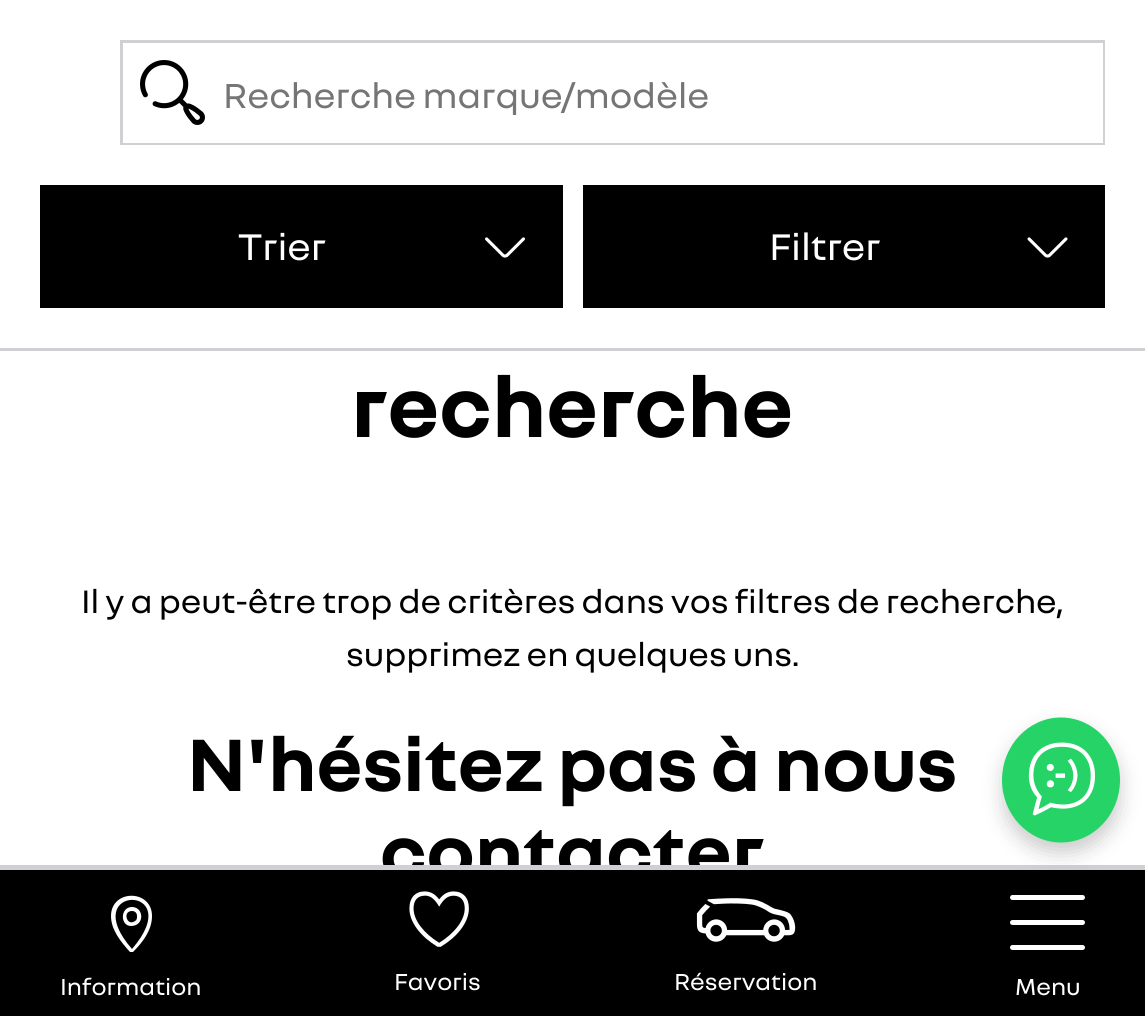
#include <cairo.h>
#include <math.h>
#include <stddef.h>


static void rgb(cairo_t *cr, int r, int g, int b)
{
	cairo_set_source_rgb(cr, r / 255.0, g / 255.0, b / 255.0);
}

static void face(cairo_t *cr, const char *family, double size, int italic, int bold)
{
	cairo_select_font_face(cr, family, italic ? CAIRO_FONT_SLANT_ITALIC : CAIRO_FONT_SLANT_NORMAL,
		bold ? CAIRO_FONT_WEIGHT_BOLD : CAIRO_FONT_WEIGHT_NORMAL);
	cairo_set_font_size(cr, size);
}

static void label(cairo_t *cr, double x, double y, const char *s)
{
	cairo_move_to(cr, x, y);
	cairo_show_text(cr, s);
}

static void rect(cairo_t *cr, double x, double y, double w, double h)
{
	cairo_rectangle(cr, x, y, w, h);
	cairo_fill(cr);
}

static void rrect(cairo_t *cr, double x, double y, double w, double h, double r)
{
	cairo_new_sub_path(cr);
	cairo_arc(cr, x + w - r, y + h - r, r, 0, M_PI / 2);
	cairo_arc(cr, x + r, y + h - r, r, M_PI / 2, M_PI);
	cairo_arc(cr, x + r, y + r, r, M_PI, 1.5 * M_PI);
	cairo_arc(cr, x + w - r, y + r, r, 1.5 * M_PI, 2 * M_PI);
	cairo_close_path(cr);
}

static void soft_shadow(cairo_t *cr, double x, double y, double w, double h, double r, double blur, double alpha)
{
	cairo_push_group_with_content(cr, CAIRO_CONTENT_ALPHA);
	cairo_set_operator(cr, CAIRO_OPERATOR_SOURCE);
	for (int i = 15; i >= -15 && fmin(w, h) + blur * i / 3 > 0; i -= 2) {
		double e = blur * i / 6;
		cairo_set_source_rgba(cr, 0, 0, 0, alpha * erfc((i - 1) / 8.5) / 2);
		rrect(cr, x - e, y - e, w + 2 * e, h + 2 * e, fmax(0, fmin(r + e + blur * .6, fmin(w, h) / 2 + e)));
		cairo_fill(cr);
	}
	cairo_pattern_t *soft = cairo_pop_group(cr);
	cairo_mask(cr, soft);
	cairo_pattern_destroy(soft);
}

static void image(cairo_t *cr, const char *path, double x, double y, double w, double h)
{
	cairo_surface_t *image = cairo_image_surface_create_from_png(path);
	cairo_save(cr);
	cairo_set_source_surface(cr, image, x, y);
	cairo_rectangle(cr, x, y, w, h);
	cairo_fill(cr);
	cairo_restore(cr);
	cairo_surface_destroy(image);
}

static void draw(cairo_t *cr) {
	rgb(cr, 255, 255, 255);
	cairo_paint(cr);
	rgb(cr, 206, 208, 211);
	rect(cr, 0, 348, 1145, 3);
	cairo_rectangle(cr, 121.5, 41.5, 982, 102);
	cairo_set_line_width(cr, 3);
	cairo_stroke(cr);
	rgb(cr, 255, 255, 255);
	rect(cr, 123, 43, 980, 100);
	image(cr, "image0.png", 140, 60, 65, 65);
	cairo_save(cr);
	cairo_rectangle(cr, 223, 70, 845, 45);
	cairo_clip(cr);
	face(cr, "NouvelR", 37.5, 0, 0);
	rgb(cr, 117, 117, 117);
	label(cr, 223, 108, "Recherche marque/modèle");
	cairo_restore(cr);
	rgb(cr, 0, 0, 0);
	rect(cr, 40, 185, 523, 123);
	face(cr, "NouvelR", 40, 0, 0);
	rgb(cr, 255, 255, 255);
	label(cr, 238, 260, "Trier");
	image(cr, "image1.png", 485, 237, 40, 21);
	rgb(cr, 0, 0, 0);
	rect(cr, 583, 185, 522, 123);
	rgb(cr, 255, 255, 255);
	label(cr, 769, 260, "Filtrer");
	image(cr, "image2.png", 1027, 237, 41, 21);
	face(cr, "NouvelR", 90, 0, 1);
	rgb(cr, 0, 0, 0);
	label(cr, 351, 437, "recherche");
	face(cr, "NouvelR", 35, 0, 0);
	label(cr, 81, 613, "Il y a peut-être trop de critères dans vos filtres de recherche,");
	label(cr, 346, 666, "supprimez en quelques uns.");
	face(cr, "NouvelR", 80, 0, 1);
	label(cr, 187, 791, "N'hésitez pas à nous");
	label(cr, 380, 879, "contacter");
	rect(cr, 0, 870, 1145, 146);
	rgb(cr, 206, 208, 211);
	rect(cr, 0, 865, 1145, 5);
	rgb(cr, 255, 255, 255);
	cairo_new_path(cr);
	cairo_move_to(cr, 152, 916);
	cairo_curve_to(cr, 152, 930, 143, 942, 133, 952);
	cairo_line_to(cr, 130, 952);
	cairo_curve_to(cr, 121, 942, 111, 930, 111, 916);
	cairo_curve_to(cr, 111, 889, 152, 889, 152, 916);
	cairo_close_path(cr);
	cairo_move_to(cr, 132, 949);
	cairo_curve_to(cr, 189, 883, 75, 884, 132, 949);
	cairo_close_path(cr);
	cairo_move_to(cr, 132, 907);
	cairo_curve_to(cr, 144, 907, 145, 926, 131, 926);
	cairo_curve_to(cr, 120, 926, 120, 907, 132, 907);
	cairo_close_path(cr);
	cairo_move_to(cr, 132, 911);
	cairo_curve_to(cr, 122, 911, 127, 927, 135, 921);
	cairo_curve_to(cr, 137, 920, 137, 918, 137, 916);
	cairo_curve_to(cr, 137, 913, 135, 911, 132, 911);
	cairo_close_path(cr);
	cairo_fill(cr);
	face(cr, "NouvelR", 25, 0, 0);
	label(cr, 60, 995, "Information");
	image(cr, "image3.png", 409, 891, 60, 56);
	label(cr, 394, 990, "Favoris");
	image(cr, "image4.png", 696, 898, 100, 44);
	label(cr, 674, 990, "Réservation");
	rrect(cr, 1010, 895, 75, 5, 2.5);
	cairo_fill(cr);
	rrect(cr, 1010, 920, 75, 5, 2.5);
	cairo_fill(cr);
	rrect(cr, 1010, 945, 75, 5, 2.5);
	cairo_fill(cr);
	label(cr, 1015, 995, "Menu");
	rgb(cr, 0, 0, 0);
	soft_shadow(cr, 1003, 728, 117, 125, 58.5, 10, 0.2);
	rgb(cr, 37, 211, 102);
	cairo_new_path(cr);
	cairo_move_to(cr, 1061, 717.5);
	cairo_curve_to(cr, 1093.5, 717.5, 1120, 745.5, 1120, 780);
	cairo_curve_to(cr, 1120, 814.5, 1093.5, 842.5, 1061, 842.5);
	cairo_curve_to(cr, 1028.5, 842.5, 1002, 814.5, 1002, 780);
	cairo_curve_to(cr, 1002, 745.5, 1028.5, 717.5, 1061, 717.5);
	cairo_close_path(cr);
	cairo_fill(cr);
	image(cr, "image5.png", 1028, 742, 67, 74);
}

int main(void) {
	cairo_surface_t *surface = cairo_image_surface_create(CAIRO_FORMAT_RGB24, 1145, 1016);
	cairo_t *cr = cairo_create(surface);
	cairo_font_options_t *options = cairo_font_options_create();
	cairo_font_options_set_hint_metrics(options, CAIRO_HINT_METRICS_OFF);
	cairo_font_options_set_hint_style(options, CAIRO_HINT_STYLE_NONE);
	cairo_set_font_options(cr, options);
	cairo_set_miter_limit(cr, 4);
	draw(cr);
	cairo_surface_write_to_png(surface, "render.png");
	cairo_font_options_destroy(options);
	cairo_destroy(cr);
	cairo_surface_destroy(surface);
	return 0;
}
